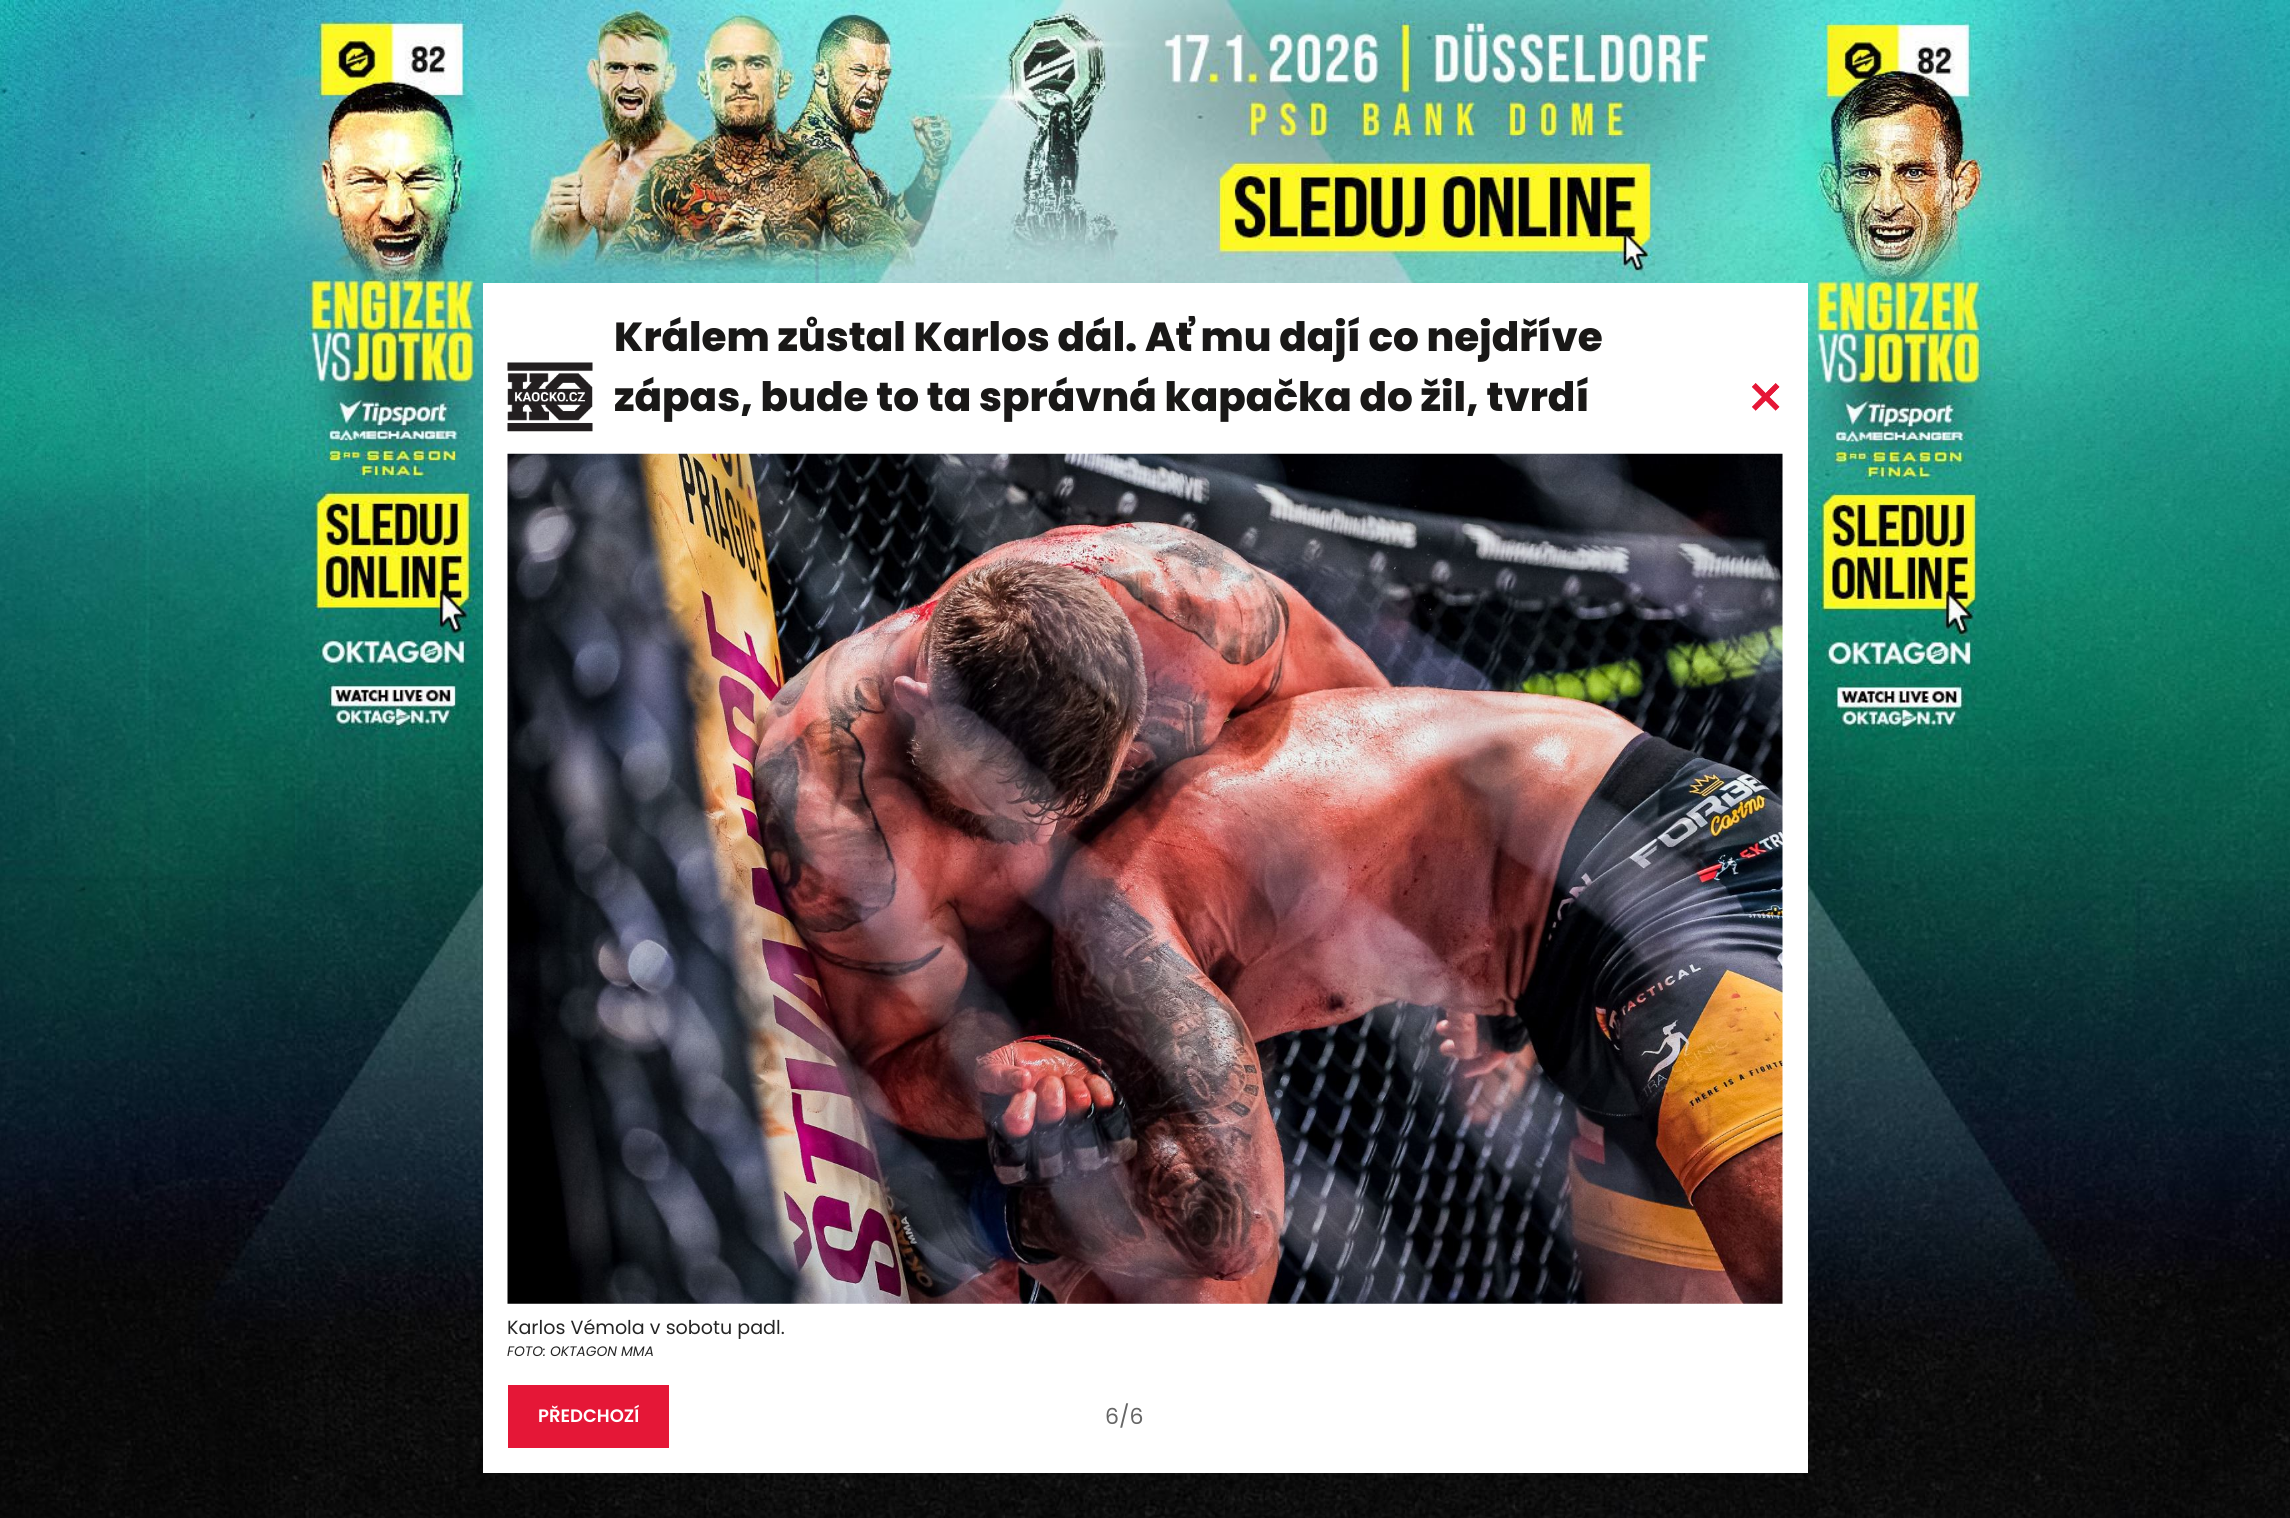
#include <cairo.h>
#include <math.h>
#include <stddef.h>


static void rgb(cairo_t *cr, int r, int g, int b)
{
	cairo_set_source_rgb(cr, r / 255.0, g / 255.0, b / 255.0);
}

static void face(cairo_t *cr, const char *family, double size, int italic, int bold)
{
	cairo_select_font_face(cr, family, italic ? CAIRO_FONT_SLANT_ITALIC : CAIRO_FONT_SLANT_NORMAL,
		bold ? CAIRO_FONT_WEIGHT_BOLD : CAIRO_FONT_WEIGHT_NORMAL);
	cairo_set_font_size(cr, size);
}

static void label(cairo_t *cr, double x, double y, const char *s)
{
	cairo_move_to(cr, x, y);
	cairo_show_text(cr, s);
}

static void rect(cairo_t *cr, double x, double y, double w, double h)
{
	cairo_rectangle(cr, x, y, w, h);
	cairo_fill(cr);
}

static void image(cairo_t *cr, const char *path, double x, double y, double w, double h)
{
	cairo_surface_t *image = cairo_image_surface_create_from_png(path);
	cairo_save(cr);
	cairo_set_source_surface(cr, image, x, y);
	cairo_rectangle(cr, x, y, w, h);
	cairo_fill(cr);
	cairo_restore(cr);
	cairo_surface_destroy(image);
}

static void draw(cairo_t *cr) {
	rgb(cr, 255, 255, 255);
	cairo_paint(cr);
	image(cr, "image0.png", 0, 0, 2290, 1518);
	rgb(cr, 255, 255, 255);
	rect(cr, 483, 283, 1325, 1190);
	image(cr, "image1.png", 507, 362, 86, 70);
	face(cr, "Poppins ExtraBold", 40.5, 0, 0);
	rgb(cr, 25, 24, 23);
	label(cr, 614, 351, "Králem zůstal Karlos dál. Ať mu dají co nejdříve");
	label(cr, 614, 411, "zápas, bude to ta správná kapačka do žil, tvrdí");
	image(cr, "image2.png", 1752, 383, 28, 28);
	image(cr, "image3.png", 507, 453, 1276, 851);
	face(cr, "Poppins", 19.1, 0, 0);
	rgb(cr, 37, 37, 37);
	label(cr, 507, 1334, "Karlos Vémola v sobotu padl.");
	face(cr, "Poppins", 13.75, 1, 0);
	label(cr, 507, 1356, "FOTO: OKTAGON MMA");
	rgb(cr, 229, 23, 55);
	rect(cr, 508, 1385, 161, 63);
	face(cr, "Poppins SemiBold", 18, 0, 0);
	rgb(cr, 255, 255, 255);
	label(cr, 538, 1422, "PŘEDCHOZÍ");
	face(cr, "Poppins", 22, 0, 0);
	rgb(cr, 102, 102, 102);
	label(cr, 1105, 1424, "6/6");
}

int main(void) {
	cairo_surface_t *surface = cairo_image_surface_create(CAIRO_FORMAT_RGB24, 2290, 1518);
	cairo_t *cr = cairo_create(surface);
	cairo_font_options_t *options = cairo_font_options_create();
	cairo_font_options_set_hint_metrics(options, CAIRO_HINT_METRICS_OFF);
	cairo_font_options_set_hint_style(options, CAIRO_HINT_STYLE_NONE);
	cairo_set_font_options(cr, options);
	cairo_set_miter_limit(cr, 4);
	draw(cr);
	cairo_surface_write_to_png(surface, "render.png");
	cairo_font_options_destroy(options);
	cairo_destroy(cr);
	cairo_surface_destroy(surface);
	return 0;
}
